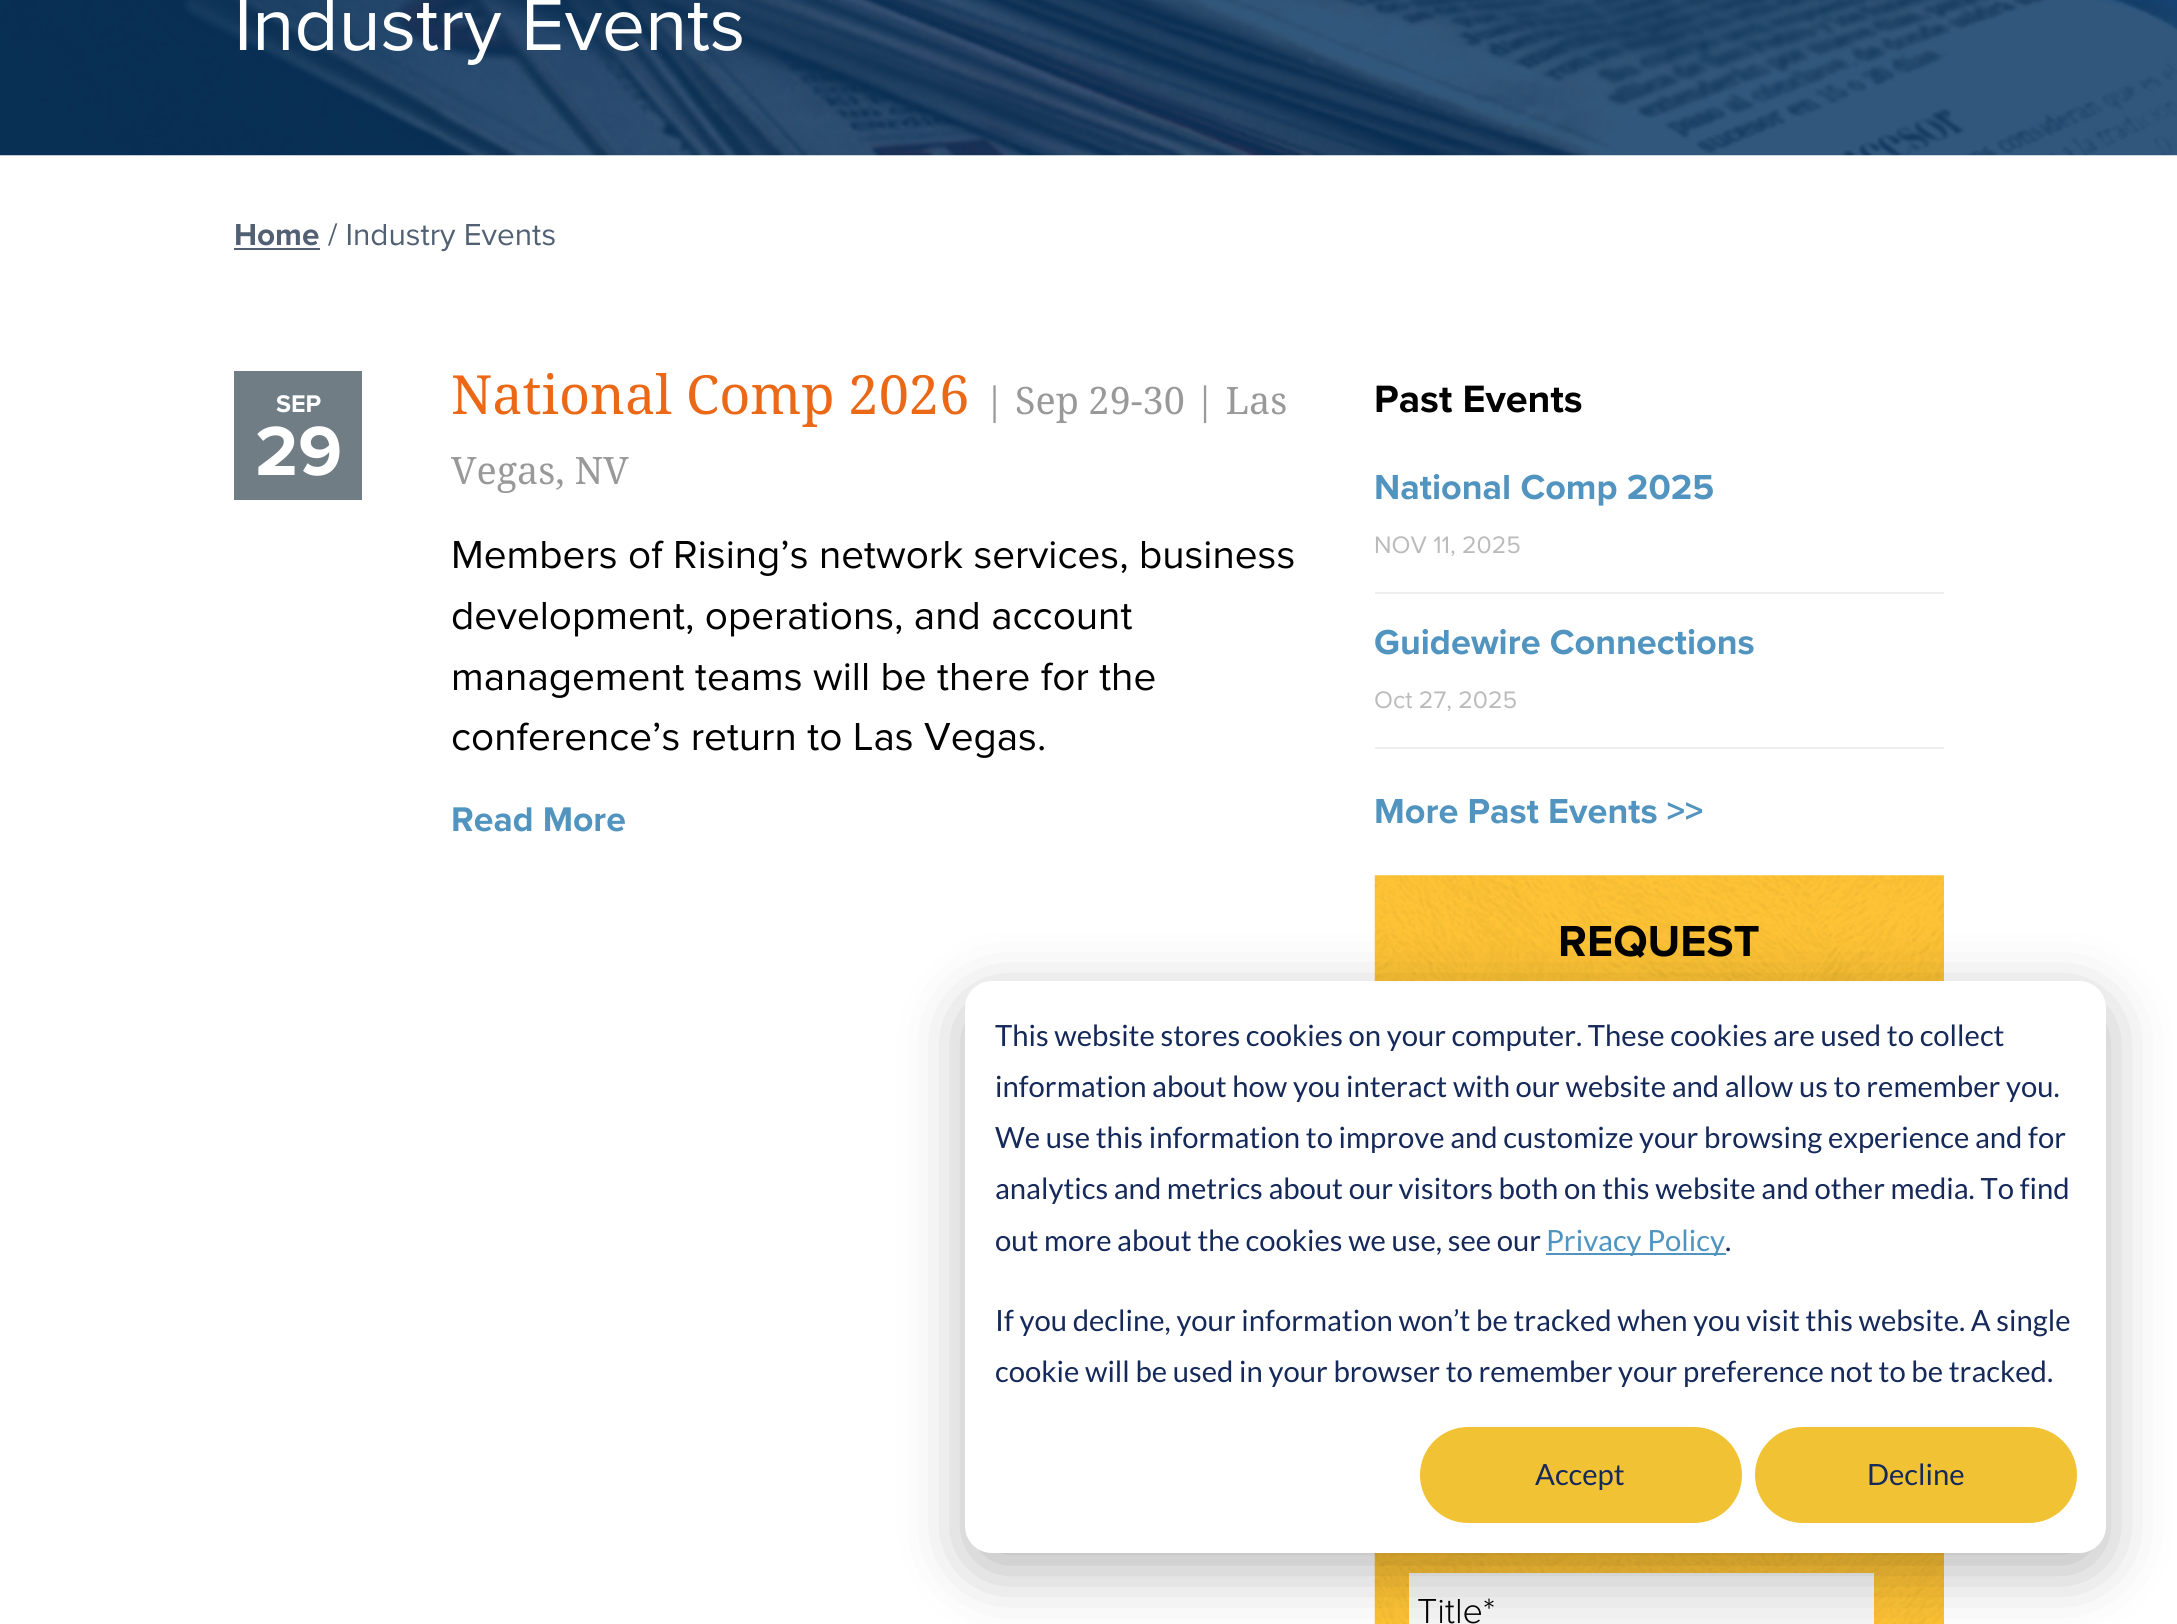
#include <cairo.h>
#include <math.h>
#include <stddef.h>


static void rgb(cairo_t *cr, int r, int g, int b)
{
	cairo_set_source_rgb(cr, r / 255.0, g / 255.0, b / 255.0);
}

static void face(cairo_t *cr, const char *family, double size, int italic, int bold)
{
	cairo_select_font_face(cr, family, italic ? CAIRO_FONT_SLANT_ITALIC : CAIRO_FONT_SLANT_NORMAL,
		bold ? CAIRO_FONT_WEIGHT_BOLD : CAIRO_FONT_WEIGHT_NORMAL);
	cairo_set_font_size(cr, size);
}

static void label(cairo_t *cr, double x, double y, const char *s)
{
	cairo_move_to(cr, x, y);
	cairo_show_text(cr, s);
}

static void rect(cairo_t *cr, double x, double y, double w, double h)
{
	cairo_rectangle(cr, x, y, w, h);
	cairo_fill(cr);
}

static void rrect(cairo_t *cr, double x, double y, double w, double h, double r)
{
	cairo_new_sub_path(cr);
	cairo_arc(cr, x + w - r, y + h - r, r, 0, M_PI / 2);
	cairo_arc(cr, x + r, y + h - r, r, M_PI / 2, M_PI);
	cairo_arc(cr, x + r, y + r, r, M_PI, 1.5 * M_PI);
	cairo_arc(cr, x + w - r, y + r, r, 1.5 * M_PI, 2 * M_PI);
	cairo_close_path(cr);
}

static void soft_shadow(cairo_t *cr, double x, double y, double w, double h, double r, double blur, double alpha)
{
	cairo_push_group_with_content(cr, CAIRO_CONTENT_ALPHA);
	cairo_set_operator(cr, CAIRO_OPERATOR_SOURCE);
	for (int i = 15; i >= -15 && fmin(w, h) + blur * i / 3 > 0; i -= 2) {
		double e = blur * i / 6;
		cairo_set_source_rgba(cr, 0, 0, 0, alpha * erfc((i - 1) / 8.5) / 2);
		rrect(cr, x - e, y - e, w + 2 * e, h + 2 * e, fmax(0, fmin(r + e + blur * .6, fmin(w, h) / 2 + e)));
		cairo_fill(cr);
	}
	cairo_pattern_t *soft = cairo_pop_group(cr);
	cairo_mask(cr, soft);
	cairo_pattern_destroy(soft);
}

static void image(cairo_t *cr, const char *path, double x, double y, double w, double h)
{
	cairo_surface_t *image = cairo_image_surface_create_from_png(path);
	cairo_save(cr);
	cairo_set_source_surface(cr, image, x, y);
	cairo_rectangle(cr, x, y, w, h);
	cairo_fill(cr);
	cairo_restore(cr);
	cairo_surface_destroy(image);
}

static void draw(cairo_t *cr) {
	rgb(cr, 255, 255, 255);
	cairo_paint(cr);
	image(cr, "image0.png", 0, 0, 2177, 156);
	face(cr, "Proxima Nova", 76.5, 0, 0);
	rgb(cr, 255, 255, 255);
	label(cr, 234, 50, "Industry Events");
	face(cr, "Proxima Nova", 31.5, 0, 1);
	rgb(cr, 82, 96, 115);
	label(cr, 234, 245, "Home");
	rect(cr, 234, 248, 86, 2);
	face(cr, "Proxima Nova", 31.5, 0, 0);
	label(cr, 328, 245, "/ Industry Events");
	rgb(cr, 112, 125, 133);
	rect(cr, 234, 371, 128, 129);
	face(cr, "Proxima Nova", 25, 0, 1);
	rgb(cr, 255, 255, 255);
	label(cr, 276, 412, "SEP");
	face(cr, "Proxima Nova", 72, 0, 1);
	label(cr, 255, 475, "29");
	face(cr, "Droid Serif", 54, 0, 0);
	rgb(cr, 235, 104, 22);
	label(cr, 451, 414, "National Comp 2026");
	face(cr, "Droid Serif", 37.75, 0, 0);
	rgb(cr, 153, 153, 153);
	label(cr, 984, 414, "| Sep 29-30 | Las");
	label(cr, 451, 484, "Vegas, NV");
	face(cr, "Proxima Nova", 40.5, 0, 0);
	rgb(cr, 1, 1, 1);
	label(cr, 451, 568, "Members of Rising’s network services, business");
	label(cr, 451, 629, "development, operations, and account");
	label(cr, 451, 690, "management teams will be there for the");
	label(cr, 451, 750, "conference’s return to Las Vegas.");
	face(cr, "Proxima Nova", 35.5, 0, 1);
	rgb(cr, 81, 148, 191);
	label(cr, 451, 831, "Read More");
	face(cr, "Proxima Nova", 39.5, 0, 1);
	rgb(cr, 1, 1, 1);
	label(cr, 1374, 412, "Past Events");
	rgb(cr, 238, 238, 238);
	rect(cr, 1375, 592, 569, 2);
	face(cr, "Proxima Nova", 36, 0, 1);
	rgb(cr, 81, 148, 191);
	label(cr, 1374, 499, "National Comp 2025");
	face(cr, "Proxima Nova", 24.75, 0, 0);
	rgb(cr, 187, 187, 187);
	label(cr, 1374, 553, "NOV 11, 2025");
	rgb(cr, 238, 238, 238);
	rect(cr, 1375, 747, 569, 2);
	face(cr, "Proxima Nova", 36, 0, 1);
	rgb(cr, 81, 148, 191);
	label(cr, 1374, 654, "Guidewire Connections");
	face(cr, "Proxima Nova", 24.75, 0, 0);
	rgb(cr, 187, 187, 187);
	label(cr, 1374, 708, "Oct 27, 2025");
	face(cr, "Proxima Nova", 36, 0, 1);
	rgb(cr, 81, 148, 191);
	label(cr, 1374, 823, "More Past Events >>");
	image(cr, "image1.png", 1374, 875, 570, 749);
	face(cr, "Proxima Nova", 45, 0, 1);
	rgb(cr, 1, 1, 1);
	label(cr, 1558, 956, "REQUEST");
	rgb(cr, 246, 246, 246);
	rect(cr, 1409, 1573, 465, 51);
	face(cr, "Proxima Nova Light", 36, 0, 0);
	rgb(cr, 1, 1, 1);
	label(cr, 1417, 1623, "Title*");
	rgb(cr, 0, 0, 0);
	soft_shadow(cr, 965, 999, 1141, 572, 27, 31.5, 0.28);
	rgb(cr, 255, 255, 255);
	rrect(cr, 965, 981, 1141, 572, 27);
	cairo_fill(cr);
	face(cr, "Lato", 29.25, 0, 0);
	rgb(cr, 21, 41, 90);
	label(cr, 995, 1046, "This website stores cookies on your computer. These cookies are used to collect");
	label(cr, 995, 1097, "information about how you interact with our website and allow us to remember you.");
	label(cr, 995, 1148, "We use this information to improve and customize your browsing experience and for");
	label(cr, 995, 1199, "analytics and metrics about our visitors both on this website and other media. To find");
	label(cr, 995, 1251, "out more about the cookies we use, see our");
	rgb(cr, 81, 148, 191);
	rect(cr, 1546, 1253, 180, 2);
	label(cr, 1546, 1251, "Privacy Policy");
	rgb(cr, 21, 41, 90);
	label(cr, 1725, 1251, ".");
	label(cr, 995, 1331, "If you decline, your information won’t be tracked when you visit this website. A single");
	label(cr, 995, 1382, "cookie will be used in your browser to remember your preference not to be tracked.");
	rgb(cr, 241, 194, 51);
	rrect(cr, 1421, 1428, 320, 94, 47);
	cairo_fill_preserve(cr);
	cairo_stroke(cr);
	rgb(cr, 21, 41, 90);
	label(cr, 1535, 1485, "Accept");
	rgb(cr, 241, 194, 51);
	rrect(cr, 1756, 1428, 320, 94, 47);
	cairo_fill_preserve(cr);
	cairo_stroke(cr);
	rgb(cr, 21, 41, 90);
	label(cr, 1867, 1485, "Decline");
}

int main(void) {
	cairo_surface_t *surface = cairo_image_surface_create(CAIRO_FORMAT_RGB24, 2177, 1624);
	cairo_t *cr = cairo_create(surface);
	cairo_font_options_t *options = cairo_font_options_create();
	cairo_font_options_set_hint_metrics(options, CAIRO_HINT_METRICS_OFF);
	cairo_font_options_set_hint_style(options, CAIRO_HINT_STYLE_NONE);
	cairo_set_font_options(cr, options);
	cairo_set_miter_limit(cr, 4);
	draw(cr);
	cairo_surface_write_to_png(surface, "render.png");
	cairo_font_options_destroy(options);
	cairo_destroy(cr);
	cairo_surface_destroy(surface);
	return 0;
}
